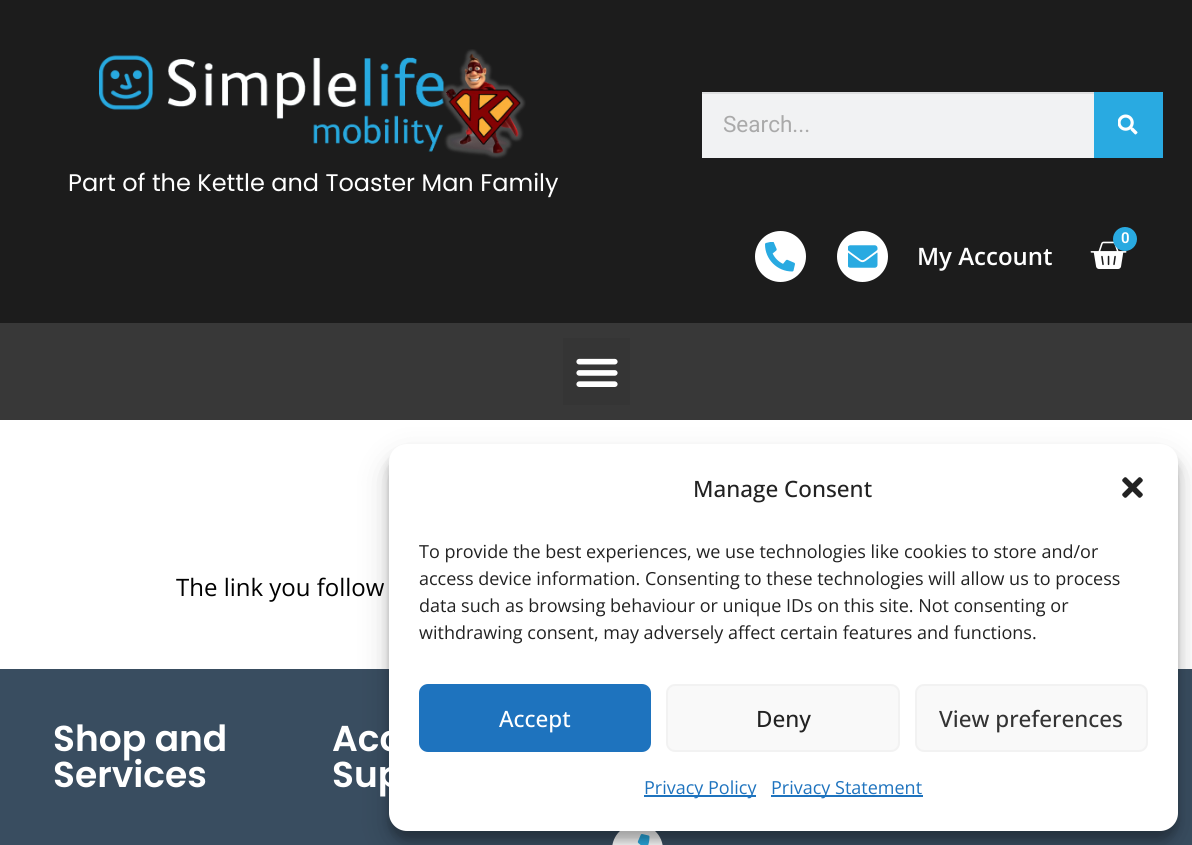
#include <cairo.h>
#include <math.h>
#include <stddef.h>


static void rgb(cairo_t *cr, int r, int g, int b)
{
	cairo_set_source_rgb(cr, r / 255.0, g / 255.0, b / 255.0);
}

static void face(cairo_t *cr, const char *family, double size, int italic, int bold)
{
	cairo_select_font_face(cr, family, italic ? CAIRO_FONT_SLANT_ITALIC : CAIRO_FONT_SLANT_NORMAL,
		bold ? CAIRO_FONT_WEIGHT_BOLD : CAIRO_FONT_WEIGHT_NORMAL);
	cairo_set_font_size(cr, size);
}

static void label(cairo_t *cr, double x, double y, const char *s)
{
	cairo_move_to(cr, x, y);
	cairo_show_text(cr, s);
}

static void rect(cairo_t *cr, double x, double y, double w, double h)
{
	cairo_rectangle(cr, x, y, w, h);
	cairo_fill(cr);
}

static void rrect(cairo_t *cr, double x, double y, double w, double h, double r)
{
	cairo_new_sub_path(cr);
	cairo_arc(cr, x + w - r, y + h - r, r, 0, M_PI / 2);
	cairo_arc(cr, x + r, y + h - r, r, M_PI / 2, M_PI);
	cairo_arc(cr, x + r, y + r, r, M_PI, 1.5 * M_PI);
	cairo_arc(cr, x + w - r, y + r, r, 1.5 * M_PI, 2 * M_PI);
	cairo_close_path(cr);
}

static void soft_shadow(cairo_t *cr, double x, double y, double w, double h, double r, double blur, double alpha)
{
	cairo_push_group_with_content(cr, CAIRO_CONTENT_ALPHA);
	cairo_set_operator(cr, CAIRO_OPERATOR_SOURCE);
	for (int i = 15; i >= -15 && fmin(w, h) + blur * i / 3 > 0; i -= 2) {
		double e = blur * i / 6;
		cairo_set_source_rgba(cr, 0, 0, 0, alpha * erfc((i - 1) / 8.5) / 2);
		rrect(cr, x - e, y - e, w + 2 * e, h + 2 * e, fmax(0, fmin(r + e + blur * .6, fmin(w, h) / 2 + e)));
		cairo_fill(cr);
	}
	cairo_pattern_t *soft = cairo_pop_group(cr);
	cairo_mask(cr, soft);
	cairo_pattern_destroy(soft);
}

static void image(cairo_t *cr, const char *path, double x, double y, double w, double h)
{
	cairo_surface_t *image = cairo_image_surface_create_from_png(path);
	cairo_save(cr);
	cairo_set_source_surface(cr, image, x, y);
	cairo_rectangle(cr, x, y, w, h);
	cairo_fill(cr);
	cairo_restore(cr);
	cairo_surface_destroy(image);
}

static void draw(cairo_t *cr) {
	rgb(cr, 255, 255, 255);
	cairo_paint(cr);
	rgb(cr, 28, 28, 28);
	rect(cr, 0, 0, 1192, 323);
	rgb(cr, 241, 242, 243);
	rect(cr, 702, 94, 392, 64);
	rgb(cr, 222, 223, 224);
	rect(cr, 702, 92, 392, 2);
	face(cr, "Roboto", 22.5, 0, 0);
	rgb(cr, 170, 170, 170);
	label(cr, 723, 132, "Search...");
	rgb(cr, 41, 170, 225);
	rect(cr, 1094, 92, 69, 66);
	image(cr, "image0.png", 1118, 114, 20, 21);
	image(cr, "image1.png", 99, 49, 427, 110);
	face(cr, "Poppins", 24, 0, 0);
	rgb(cr, 255, 255, 255);
	label(cr, 68, 191, "Part of the Kettle and Toaster Man Family");
	cairo_new_path(cr);
	cairo_arc(cr, 780.5, 256.5, 25.5, 0, 2 * M_PI);
	cairo_fill(cr);
	image(cr, "image2.png", 765, 242, 30, 30);
	cairo_arc(cr, 862.5, 256.5, 25.5, 0, 2 * M_PI);
	cairo_fill(cr);
	image(cr, "image3.png", 848, 245, 30, 23);
	image(cr, "image4.png", 1090, 241, 37, 28);
	rgb(cr, 41, 170, 225);
	cairo_arc(cr, 1125, 239, 12, 0, 2 * M_PI);
	cairo_fill(cr);
	face(cr, "Roboto SemiBold", 15, 0, 0);
	rgb(cr, 255, 255, 255);
	label(cr, 1121, 243, "0");
	face(cr, "Open Sans SemiBold", 24, 0, 0);
	label(cr, 917, 265, "My Account");
	rgb(cr, 56, 56, 56);
	rect(cr, 0, 323, 1192, 97);
	rgb(cr, 53, 53, 53);
	rect(cr, 563, 338, 67, 67);
	image(cr, "image5.png", 576, 358, 42, 29);
	face(cr, "Open Sans", 24, 0, 0);
	rgb(cr, 0, 0, 0);
	label(cr, 176, 596, "The link you follow");
	rgb(cr, 57, 77, 96);
	rect(cr, 0, 669, 1192, 176);
	rgb(cr, 255, 255, 255);
	rrect(cr, 612, 824, 51, 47, 25.5);
	cairo_fill(cr);
	image(cr, "image7.png", 637, 834, 13, 11);
	rgb(cr, 0, 0, 0);
	soft_shadow(cr, 389, 453, 789, 387, 18, 4.5, 0.23);
	soft_shadow(cr, 389, 459, 789, 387, 18, 15, 0.19);
	rgb(cr, 255, 255, 255);
	rrect(cr, 389, 444, 789, 387, 18);
	cairo_fill(cr);
	face(cr, "Open Sans Medium", 22.5, 0, 0);
	rgb(cr, 34, 34, 34);
	label(cr, 693, 497, "Manage Consent");
	image(cr, "image6.png", 1122, 477, 21, 21);
	face(cr, "Open Sans", 18, 0, 0);
	label(cr, 419, 558, "To provide the best experiences, we use technologies like cookies to store and/or");
	label(cr, 419, 585, "access device information. Consenting to these technologies will allow us to process");
	label(cr, 419, 612, "data such as browsing behaviour or unique IDs on this site. Not consenting or");
	label(cr, 419, 639, "withdrawing consent, may adversely affect certain features and functions.");
	rgb(cr, 30, 115, 190);
	rrect(cr, 420, 685, 230, 66, 8);
	cairo_fill_preserve(cr);
	cairo_stroke(cr);
	face(cr, "Open Sans Medium", 22.5, 0, 0);
	rgb(cr, 255, 255, 255);
	label(cr, 499, 727, "Accept");
	rgb(cr, 249, 249, 249);
	rrect(cr, 667, 685, 232, 66, 8);
	cairo_fill_preserve(cr);
	rgb(cr, 242, 242, 242);
	cairo_stroke(cr);
	rgb(cr, 34, 34, 34);
	label(cr, 756, 727, "Deny");
	rgb(cr, 249, 249, 249);
	rrect(cr, 916, 685, 231, 66, 8);
	cairo_fill_preserve(cr);
	rgb(cr, 242, 242, 242);
	cairo_stroke(cr);
	rgb(cr, 51, 51, 51);
	label(cr, 939, 727, "View preferences");
	rgb(cr, 30, 115, 190);
	rect(cr, 644, 795, 112, 2);
	face(cr, "Open Sans", 18, 0, 0);
	label(cr, 644, 794, "Privacy Policy");
	rect(cr, 771, 795, 152, 2);
	label(cr, 771, 794, "Privacy Statement");
	face(cr, "Poppins SemiBold", 36, 0, 0);
	rgb(cr, 255, 255, 255);
	label(cr, 53, 751, "Shop and");
	label(cr, 53, 787, "Services");
	label(cr, 332, 751, "Acc");
	label(cr, 332, 787, "Sup");
}

int main(void) {
	cairo_surface_t *surface = cairo_image_surface_create(CAIRO_FORMAT_RGB24, 1192, 845);
	cairo_t *cr = cairo_create(surface);
	cairo_font_options_t *options = cairo_font_options_create();
	cairo_font_options_set_hint_metrics(options, CAIRO_HINT_METRICS_OFF);
	cairo_font_options_set_hint_style(options, CAIRO_HINT_STYLE_NONE);
	cairo_set_font_options(cr, options);
	cairo_set_miter_limit(cr, 4);
	draw(cr);
	cairo_surface_write_to_png(surface, "render.png");
	cairo_font_options_destroy(options);
	cairo_destroy(cr);
	cairo_surface_destroy(surface);
	return 0;
}
